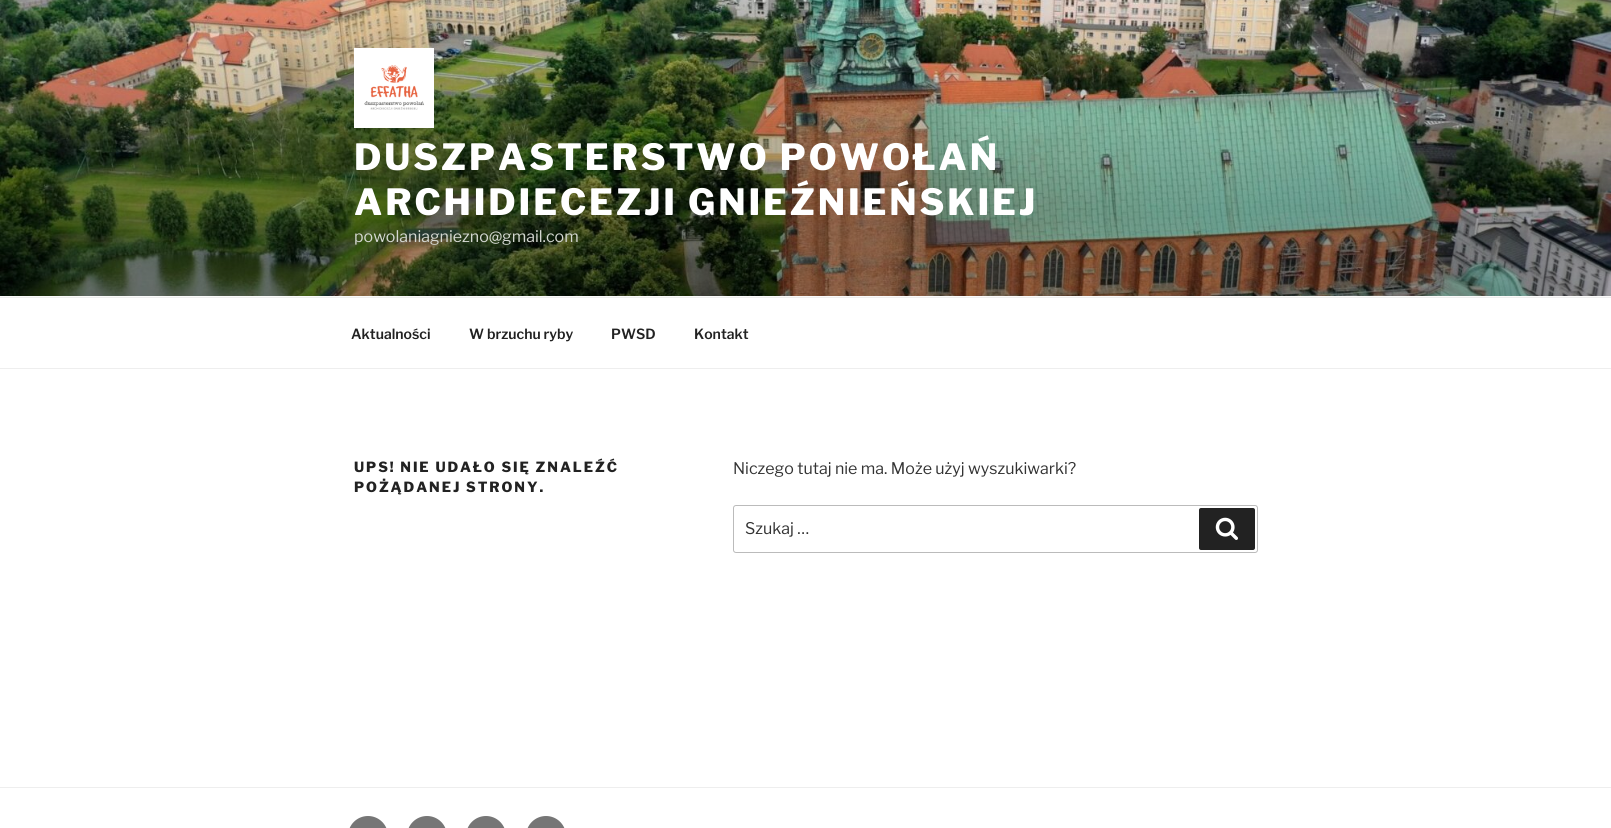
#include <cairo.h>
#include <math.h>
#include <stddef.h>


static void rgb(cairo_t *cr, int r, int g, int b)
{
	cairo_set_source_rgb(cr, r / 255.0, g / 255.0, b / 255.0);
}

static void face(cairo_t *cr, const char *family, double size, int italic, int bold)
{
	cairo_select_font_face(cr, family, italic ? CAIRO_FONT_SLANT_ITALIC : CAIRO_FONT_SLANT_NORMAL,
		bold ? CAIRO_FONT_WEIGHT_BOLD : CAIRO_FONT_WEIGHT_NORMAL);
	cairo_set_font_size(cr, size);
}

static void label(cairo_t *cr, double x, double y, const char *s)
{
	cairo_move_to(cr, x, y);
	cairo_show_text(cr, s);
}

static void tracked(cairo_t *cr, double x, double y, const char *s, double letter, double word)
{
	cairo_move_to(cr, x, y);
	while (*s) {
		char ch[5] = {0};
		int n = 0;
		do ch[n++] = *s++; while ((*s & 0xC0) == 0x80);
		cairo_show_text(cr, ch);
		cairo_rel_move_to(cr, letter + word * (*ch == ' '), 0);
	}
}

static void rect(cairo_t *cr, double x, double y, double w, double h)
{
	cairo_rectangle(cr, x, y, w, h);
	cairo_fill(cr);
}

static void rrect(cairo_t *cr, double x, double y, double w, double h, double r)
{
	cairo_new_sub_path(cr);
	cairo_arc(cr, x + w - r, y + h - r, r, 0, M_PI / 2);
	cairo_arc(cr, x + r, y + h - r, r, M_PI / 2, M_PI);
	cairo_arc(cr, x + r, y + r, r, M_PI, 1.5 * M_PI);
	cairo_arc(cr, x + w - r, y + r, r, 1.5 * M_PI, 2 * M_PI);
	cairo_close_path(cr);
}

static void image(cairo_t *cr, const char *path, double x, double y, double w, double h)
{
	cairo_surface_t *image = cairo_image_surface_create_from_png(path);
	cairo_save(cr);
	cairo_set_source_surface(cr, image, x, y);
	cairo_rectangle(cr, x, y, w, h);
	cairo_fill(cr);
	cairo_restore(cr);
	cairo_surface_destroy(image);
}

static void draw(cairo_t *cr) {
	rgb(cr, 255, 255, 255);
	cairo_paint(cr);
	rgb(cr, 250, 250, 250);
	rect(cr, 0, 296, 1611, 1);
	image(cr, "image0.png", 0, 0, 1611, 296);
	image(cr, "image1.png", 354, 48, 80, 80);
	face(cr, "Libre Franklin ExtraBold", 36, 0, 0);
	rgb(cr, 255, 255, 255);
	tracked(cr, 354, 170, "DUSZPASTERSTWO POWOŁAŃ", 2.9, 0);
	tracked(cr, 354, 215, "ARCHIDIECEZJI GNIEŹNIEŃSKIEJ", 2.9, 0);
	face(cr, "Libre Franklin", 16, 0, 0);
	rgb(cr, 213, 216, 210);
	label(cr, 354, 242, "powolaniagniezno@gmail.com");
	rgb(cr, 238, 238, 238);
	rect(cr, 0, 297, 1611, 1);
	rect(cr, 0, 368, 1611, 1);
	face(cr, "Libre Franklin SemiBold", 14, 0, 0);
	rgb(cr, 34, 34, 34);
	label(cr, 351, 339, "Aktualności");
	label(cr, 469, 339, "W brzuchu ryby");
	label(cr, 611, 339, "PWSD");
	label(cr, 694, 339, "Kontakt");
	face(cr, "Libre Franklin ExtraBold", 14, 0, 0);
	tracked(cr, 354, 472, "UPS! NIE UDAŁO SIĘ ZNALEŹĆ", 1.95, 0);
	tracked(cr, 354, 492, "POŻĄDANEJ STRONY.", 1.95, 0);
	face(cr, "Libre Franklin", 16, 0, 0);
	rgb(cr, 51, 51, 51);
	label(cr, 733, 474, "Niczego tutaj nie ma. Może użyj wyszukiwarki?");
	rrect(cr, 733.5, 505.5, 524, 47, 2.5);
	rgb(cr, 187, 187, 187);
	cairo_set_line_width(cr, 1);
	cairo_stroke(cr);
	rgb(cr, 51, 51, 51);
	label(cr, 745, 534, "Szukaj …");
	rgb(cr, 34, 34, 34);
	rrect(cr, 1199, 508, 56, 42, 2);
	cairo_fill(cr);
	image(cr, "image2.png", 1215, 517, 23, 23);
	rgb(cr, 238, 238, 238);
	rect(cr, 0, 787, 1611, 1);
	rgb(cr, 118, 118, 118);
	rrect(cr, 348, 816, 40, 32, 20);
	cairo_fill(cr);
	rrect(cr, 407, 816, 40, 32, 20);
	cairo_fill(cr);
	rrect(cr, 466, 816, 40, 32, 20);
	cairo_fill(cr);
	rrect(cr, 526, 816, 40, 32, 20);
	cairo_fill(cr);
}

int main(void) {
	cairo_surface_t *surface = cairo_image_surface_create(CAIRO_FORMAT_RGB24, 1611, 828);
	cairo_t *cr = cairo_create(surface);
	cairo_font_options_t *options = cairo_font_options_create();
	cairo_font_options_set_hint_metrics(options, CAIRO_HINT_METRICS_OFF);
	cairo_font_options_set_hint_style(options, CAIRO_HINT_STYLE_NONE);
	cairo_set_font_options(cr, options);
	cairo_set_miter_limit(cr, 4);
	draw(cr);
	cairo_surface_write_to_png(surface, "render.png");
	cairo_font_options_destroy(options);
	cairo_destroy(cr);
	cairo_surface_destroy(surface);
	return 0;
}
